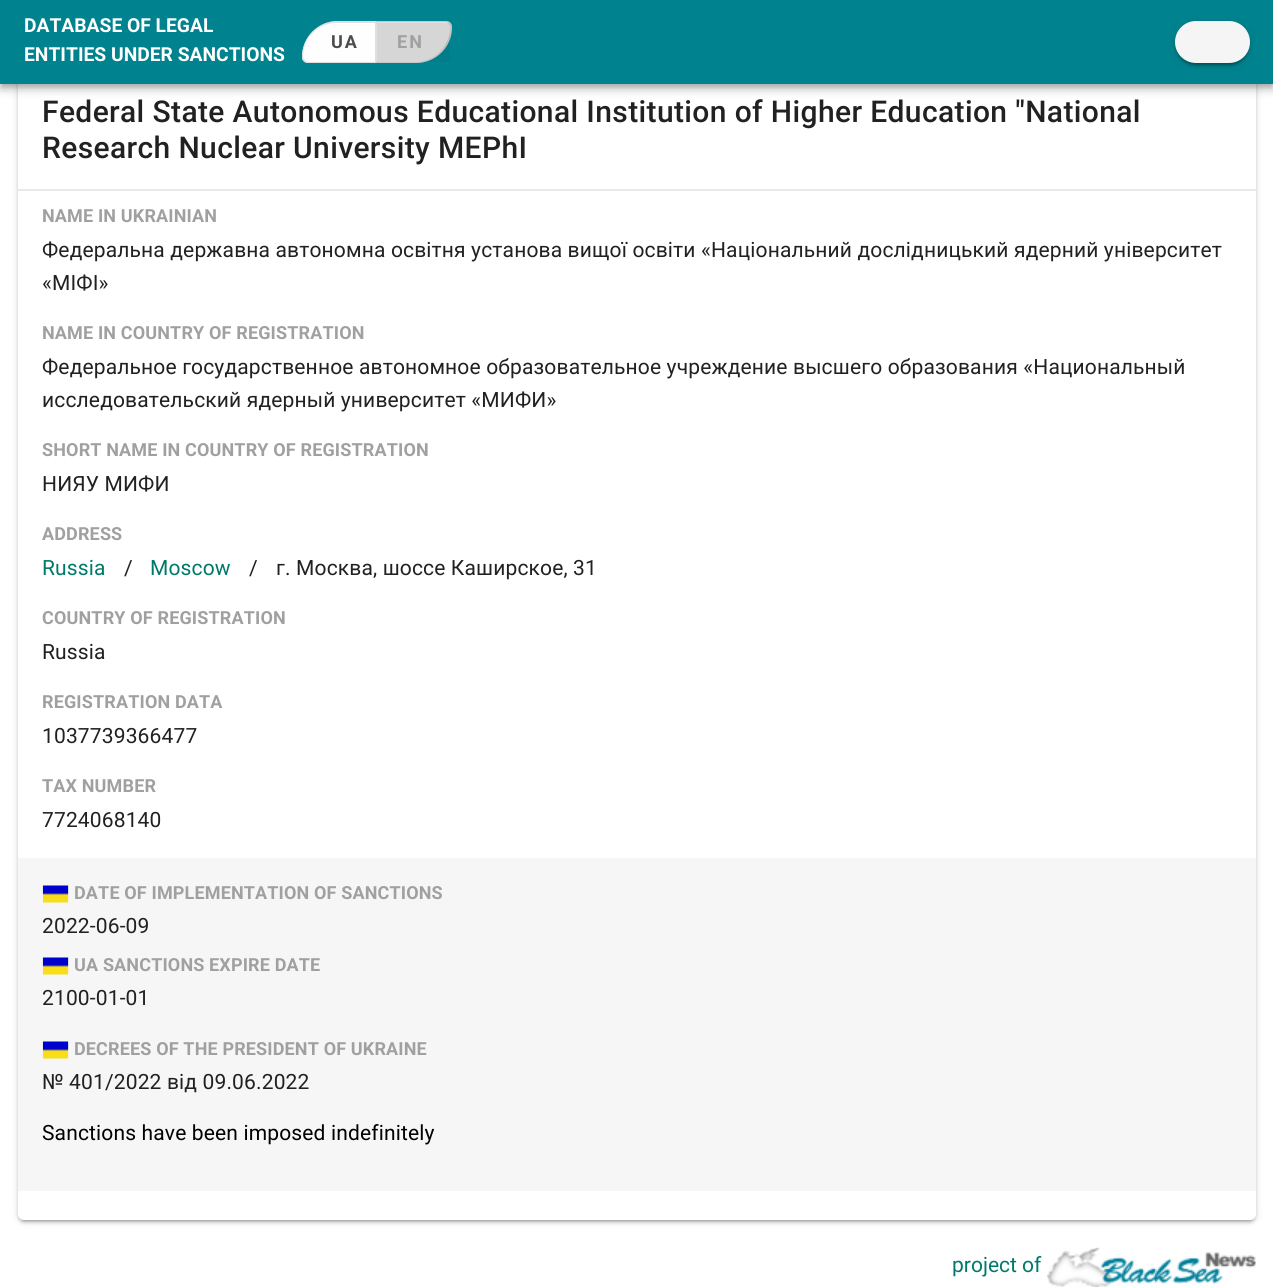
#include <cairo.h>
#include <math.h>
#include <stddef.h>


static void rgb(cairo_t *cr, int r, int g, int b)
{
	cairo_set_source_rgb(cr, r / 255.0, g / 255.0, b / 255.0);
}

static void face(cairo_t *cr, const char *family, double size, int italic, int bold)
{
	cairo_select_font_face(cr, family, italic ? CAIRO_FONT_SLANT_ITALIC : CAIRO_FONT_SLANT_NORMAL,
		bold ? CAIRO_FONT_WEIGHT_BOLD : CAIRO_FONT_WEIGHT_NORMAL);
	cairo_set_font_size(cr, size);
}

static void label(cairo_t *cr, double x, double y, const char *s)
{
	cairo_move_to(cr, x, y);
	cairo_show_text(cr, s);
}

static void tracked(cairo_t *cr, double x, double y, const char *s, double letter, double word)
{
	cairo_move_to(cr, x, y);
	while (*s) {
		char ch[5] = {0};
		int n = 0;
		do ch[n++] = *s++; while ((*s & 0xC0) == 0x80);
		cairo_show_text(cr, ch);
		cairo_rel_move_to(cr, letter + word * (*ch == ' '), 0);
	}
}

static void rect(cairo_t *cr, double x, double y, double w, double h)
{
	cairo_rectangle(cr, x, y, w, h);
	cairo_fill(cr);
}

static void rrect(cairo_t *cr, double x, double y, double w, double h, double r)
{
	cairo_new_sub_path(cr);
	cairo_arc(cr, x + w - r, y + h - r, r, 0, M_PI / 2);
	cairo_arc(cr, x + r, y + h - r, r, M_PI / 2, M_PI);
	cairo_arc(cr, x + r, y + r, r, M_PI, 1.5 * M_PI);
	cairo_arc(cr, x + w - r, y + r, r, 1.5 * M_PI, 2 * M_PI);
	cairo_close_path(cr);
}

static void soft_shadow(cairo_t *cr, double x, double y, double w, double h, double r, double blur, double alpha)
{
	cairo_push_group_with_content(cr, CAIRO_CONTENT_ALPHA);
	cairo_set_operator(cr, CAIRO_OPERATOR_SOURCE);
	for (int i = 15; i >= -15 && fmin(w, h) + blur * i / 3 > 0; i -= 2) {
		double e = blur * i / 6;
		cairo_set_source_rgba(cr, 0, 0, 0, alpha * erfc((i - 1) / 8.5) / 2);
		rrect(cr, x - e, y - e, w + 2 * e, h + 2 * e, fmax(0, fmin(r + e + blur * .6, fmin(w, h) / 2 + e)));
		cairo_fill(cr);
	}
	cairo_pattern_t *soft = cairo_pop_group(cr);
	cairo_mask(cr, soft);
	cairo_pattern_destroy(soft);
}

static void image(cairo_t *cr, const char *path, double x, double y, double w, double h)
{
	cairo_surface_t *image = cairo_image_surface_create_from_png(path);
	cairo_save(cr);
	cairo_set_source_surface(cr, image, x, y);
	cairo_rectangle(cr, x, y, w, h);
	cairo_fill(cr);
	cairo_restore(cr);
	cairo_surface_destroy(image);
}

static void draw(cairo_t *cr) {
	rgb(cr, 255, 255, 255);
	cairo_paint(cr);
	rgb(cr, 0, 0, 0);
	soft_shadow(cr, 18, 29, 1238, 1192, 6, 4, 0.12);
	soft_shadow(cr, 18, 30, 1238, 1193, 6, 1.5, 0.14);
	soft_shadow(cr, 21, 35, 1232, 1186, 3, 1, 0.2);
	rgb(cr, 255, 255, 255);
	rrect(cr, 18, 27, 1238, 1193, 6);
	cairo_fill(cr);
	rgb(cr, 0, 0, 0);
	soft_shadow(cr, 0, 2, 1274, 84, 0, 7.5, 0.12);
	soft_shadow(cr, 0, 6, 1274, 84, 0, 4, 0.14);
	soft_shadow(cr, 2, 5, 1270, 81, 0, 3, 0.2);
	rgb(cr, 0, 131, 143);
	rect(cr, 0, 0, 1273, 84);
	face(cr, "Roboto", 19.25, 0, 1);
	rgb(cr, 255, 255, 255);
	label(cr, 24, 32, "DATABASE OF LEGAL");
	label(cr, 24, 61, "ENTITIES UNDER SANCTIONS");
	cairo_new_path(cr);
	cairo_move_to(cr, 338, 21);
	cairo_line_to(cr, 446, 21);
	cairo_curve_to(cr, 449.5, 21, 452, 23.5, 452, 27);
	cairo_curve_to(cr, 452, 47, 436, 63, 416, 63);
	cairo_line_to(cr, 308, 63);
	cairo_curve_to(cr, 304.5, 63, 302, 60.5, 302, 57);
	cairo_curve_to(cr, 302, 37, 318, 21, 338, 21);
	cairo_close_path(cr);
	cairo_fill(cr);
	cairo_set_source_rgba(cr, 0.961, 0.961, 0.961, 0.8);
	cairo_new_path(cr);
	cairo_move_to(cr, 338, 21);
	cairo_line_to(cr, 377, 21);
	cairo_line_to(cr, 377, 63);
	cairo_line_to(cr, 308, 63);
	cairo_curve_to(cr, 304.5, 63, 302, 60.5, 302, 57);
	cairo_curve_to(cr, 302, 37, 318, 21, 338, 21);
	cairo_close_path(cr);
	cairo_fill(cr);
	cairo_new_path(cr);
	cairo_move_to(cr, 338, 22);
	cairo_line_to(cr, 376, 22);
	cairo_line_to(cr, 376, 62);
	cairo_line_to(cr, 308, 62);
	cairo_curve_to(cr, 305, 62, 303, 60, 303, 57);
	cairo_curve_to(cr, 303, 37.5, 318.5, 22, 338, 22);
	cairo_close_path(cr);
	cairo_set_source_rgba(cr, 0, 0, 0, 0.1);
	cairo_stroke(cr);
	cairo_set_source_rgba(cr, 1, 1, 1, 0.87);
	cairo_new_path(cr);
	cairo_move_to(cr, 336, 23);
	cairo_line_to(cr, 375, 23);
	cairo_line_to(cr, 375, 62);
	cairo_line_to(cr, 309, 62);
	cairo_curve_to(cr, 305.5, 62, 303, 59.5, 303, 56);
	cairo_curve_to(cr, 303, 38, 318, 23, 336, 23);
	cairo_close_path(cr);
	cairo_fill(cr);
	face(cr, "Roboto", 18, 0, 1);
	rgb(cr, 77, 77, 77);
	tracked(cr, 331, 48, "UA", 2, 0);
	cairo_set_source_rgba(cr, 0, 0, 0, 0.12);
	cairo_new_path(cr);
	cairo_move_to(cr, 377, 21);
	cairo_line_to(cr, 446, 21);
	cairo_curve_to(cr, 449.5, 21, 452, 23.5, 452, 27);
	cairo_curve_to(cr, 452, 47, 436, 63, 416, 63);
	cairo_line_to(cr, 377, 63);
	cairo_close_path(cr);
	cairo_fill(cr);
	cairo_set_fill_rule(cr, CAIRO_FILL_RULE_EVEN_ODD);
	cairo_new_path(cr);
	cairo_move_to(cr, 376, 21);
	cairo_line_to(cr, 446, 21);
	cairo_curve_to(cr, 449, 21, 452, 24, 452, 27);
	cairo_curve_to(cr, 452, 47, 435, 63, 416, 63);
	cairo_line_to(cr, 376, 63);
	cairo_close_path(cr);
	cairo_move_to(cr, 376, 22);
	cairo_line_to(cr, 446, 22);
	cairo_curve_to(cr, 448, 22, 450, 25, 450, 27);
	cairo_curve_to(cr, 450, 46, 435, 62, 416, 62);
	cairo_line_to(cr, 376, 62);
	cairo_close_path(cr);
	cairo_fill(cr);
	cairo_set_source_rgba(cr, 0, 0, 0, 0.05);
	rect(cr, 377, 23, 73, 39);
	rgb(cr, 160, 160, 160);
	tracked(cr, 397, 48, "EN", 2, 0);
	rgb(cr, 0, 0, 0);
	soft_shadow(cr, 1175, 23, 75, 42, 21, 4, 0.12);
	soft_shadow(cr, 1175, 24, 75, 42, 21, 1.5, 0.14);
	soft_shadow(cr, 1178, 29, 69, 36, 18, 1, 0.2);
	rgb(cr, 245, 245, 245);
	rrect(cr, 1175, 21, 75, 42, 21);
	cairo_fill(cr);
	face(cr, "Roboto Medium", 30, 0, 0);
	rgb(cr, 33, 33, 33);
	tracked(cr, 42, 122, "Federal State Autonomous Educational Institution of Higher Education \"National", 0.38, 0);
	tracked(cr, 42, 158, "Research Nuclear University MEPhI", 0.38, 0);
	rgb(cr, 233, 233, 233);
	rect(cr, 18, 189, 1238, 2);
	face(cr, "Roboto", 18, 0, 1);
	rgb(cr, 160, 160, 160);
	tracked(cr, 42, 222, "NAME IN UKRAINIAN", 0.15, 0);
	face(cr, "Roboto", 21, 0, 0);
	rgb(cr, 33, 33, 33);
	tracked(cr, 42, 257, "Федеральна державна автономна освітня установа вищої освіти «Національний дослідницький ядерний університет", 0.15, 0);
	tracked(cr, 42, 290, "«МІФІ»", 0.15, 0);
	face(cr, "Roboto", 18, 0, 1);
	rgb(cr, 160, 160, 160);
	tracked(cr, 42, 339, "NAME IN COUNTRY OF REGISTRATION", 0.15, 0);
	face(cr, "Roboto", 21, 0, 0);
	rgb(cr, 33, 33, 33);
	tracked(cr, 42, 374, "Федеральное государственное автономное образовательное учреждение высшего образования «Национальный", 0.15, 0);
	tracked(cr, 42, 407, "исследовательский ядерный университет «МИФИ»", 0.15, 0);
	face(cr, "Roboto", 18, 0, 1);
	rgb(cr, 160, 160, 160);
	tracked(cr, 42, 456, "SHORT NAME IN COUNTRY OF REGISTRATION", 0.15, 0);
	face(cr, "Roboto", 21, 0, 0);
	rgb(cr, 33, 33, 33);
	tracked(cr, 42, 491, "НИЯУ МИФИ", 0.15, 0);
	face(cr, "Roboto", 18, 0, 1);
	rgb(cr, 160, 160, 160);
	tracked(cr, 42, 540, "ADDRESS", 0.15, 0);
	face(cr, "Roboto", 21, 0, 0);
	rgb(cr, 0, 121, 107);
	tracked(cr, 42, 575, "Russia", 0.15, 0);
	rgb(cr, 33, 33, 33);
	tracked(cr, 124, 575, "/", 0.15, 0);
	rgb(cr, 0, 121, 107);
	tracked(cr, 150, 575, "Moscow", 0.15, 0);
	rgb(cr, 33, 33, 33);
	tracked(cr, 249, 575, "/", 0.15, 0);
	tracked(cr, 276, 575, "г. Москва, шоссе Каширское, 31", 0.15, 0);
	face(cr, "Roboto", 18, 0, 1);
	rgb(cr, 160, 160, 160);
	tracked(cr, 42, 624, "COUNTRY OF REGISTRATION", 0.15, 0);
	face(cr, "Roboto", 21, 0, 0);
	rgb(cr, 33, 33, 33);
	tracked(cr, 42, 659, "Russia", 0.15, 0);
	face(cr, "Roboto", 18, 0, 1);
	rgb(cr, 160, 160, 160);
	tracked(cr, 42, 708, "REGISTRATION DATA", 0.15, 0);
	face(cr, "Roboto", 21, 0, 0);
	rgb(cr, 33, 33, 33);
	tracked(cr, 42, 743, "1037739366477", 0.15, 0);
	face(cr, "Roboto", 18, 0, 1);
	rgb(cr, 160, 160, 160);
	tracked(cr, 42, 792, "TAX NUMBER", 0.15, 0);
	face(cr, "Roboto", 21, 0, 0);
	rgb(cr, 33, 33, 33);
	tracked(cr, 42, 827, "7724068140", 0.15, 0);
	rgb(cr, 246, 246, 246);
	rect(cr, 18, 858, 1238, 333);
	image(cr, "image0.png", 42, 885, 27, 18);
	face(cr, "Roboto", 18, 0, 1);
	rgb(cr, 160, 160, 160);
	tracked(cr, 74, 899, "DATE OF IMPLEMENTATION OF SANCTIONS", 0.15, 0);
	face(cr, "Roboto", 21, 0, 0);
	rgb(cr, 33, 33, 33);
	tracked(cr, 42, 933, "2022-06-09", 0.15, 0);
	image(cr, "image0.png", 42, 957, 27, 18);
	face(cr, "Roboto", 18, 0, 1);
	rgb(cr, 160, 160, 160);
	tracked(cr, 74, 971, "UA SANCTIONS EXPIRE DATE", 0.15, 0);
	face(cr, "Roboto", 21, 0, 0);
	rgb(cr, 33, 33, 33);
	tracked(cr, 42, 1005, "2100-01-01", 0.15, 0);
	image(cr, "image0.png", 42, 1041, 27, 18);
	face(cr, "Roboto", 18, 0, 1);
	rgb(cr, 160, 160, 160);
	tracked(cr, 74, 1055, "DECREES OF THE PRESIDENT OF UKRAINE", 0.15, 0);
	face(cr, "Roboto", 21, 0, 0);
	rgb(cr, 33, 33, 33);
	tracked(cr, 42, 1089, "№ 401/2022 від 09.06.2022", 0.15, 0);
	rgb(cr, 0, 0, 0);
	tracked(cr, 42, 1140, "Sanctions have been imposed indefinitely", 0.15, 0);
	rgb(cr, 0, 121, 107);
	label(cr, 952, 1272, "project of");
	image(cr, "image1.png", 1047, 1247, 209, 40);
}

int main(void) {
	cairo_surface_t *surface = cairo_image_surface_create(CAIRO_FORMAT_RGB24, 1273, 1288);
	cairo_t *cr = cairo_create(surface);
	cairo_font_options_t *options = cairo_font_options_create();
	cairo_font_options_set_hint_metrics(options, CAIRO_HINT_METRICS_OFF);
	cairo_font_options_set_hint_style(options, CAIRO_HINT_STYLE_NONE);
	cairo_set_font_options(cr, options);
	cairo_set_miter_limit(cr, 4);
	draw(cr);
	cairo_surface_write_to_png(surface, "render.png");
	cairo_font_options_destroy(options);
	cairo_destroy(cr);
	cairo_surface_destroy(surface);
	return 0;
}
